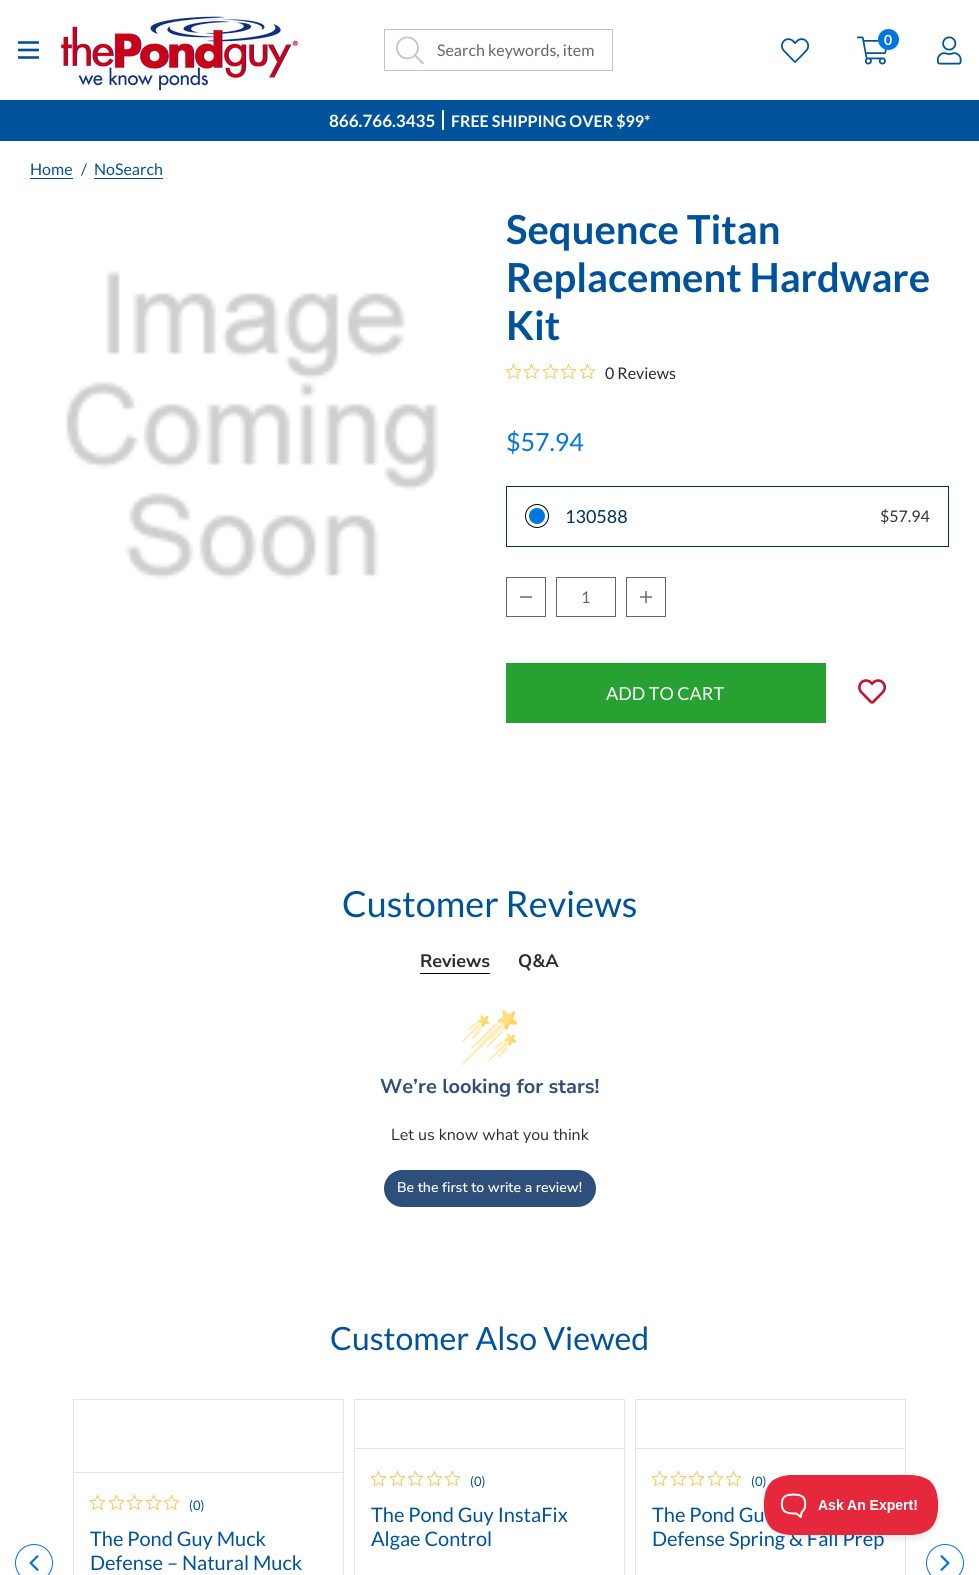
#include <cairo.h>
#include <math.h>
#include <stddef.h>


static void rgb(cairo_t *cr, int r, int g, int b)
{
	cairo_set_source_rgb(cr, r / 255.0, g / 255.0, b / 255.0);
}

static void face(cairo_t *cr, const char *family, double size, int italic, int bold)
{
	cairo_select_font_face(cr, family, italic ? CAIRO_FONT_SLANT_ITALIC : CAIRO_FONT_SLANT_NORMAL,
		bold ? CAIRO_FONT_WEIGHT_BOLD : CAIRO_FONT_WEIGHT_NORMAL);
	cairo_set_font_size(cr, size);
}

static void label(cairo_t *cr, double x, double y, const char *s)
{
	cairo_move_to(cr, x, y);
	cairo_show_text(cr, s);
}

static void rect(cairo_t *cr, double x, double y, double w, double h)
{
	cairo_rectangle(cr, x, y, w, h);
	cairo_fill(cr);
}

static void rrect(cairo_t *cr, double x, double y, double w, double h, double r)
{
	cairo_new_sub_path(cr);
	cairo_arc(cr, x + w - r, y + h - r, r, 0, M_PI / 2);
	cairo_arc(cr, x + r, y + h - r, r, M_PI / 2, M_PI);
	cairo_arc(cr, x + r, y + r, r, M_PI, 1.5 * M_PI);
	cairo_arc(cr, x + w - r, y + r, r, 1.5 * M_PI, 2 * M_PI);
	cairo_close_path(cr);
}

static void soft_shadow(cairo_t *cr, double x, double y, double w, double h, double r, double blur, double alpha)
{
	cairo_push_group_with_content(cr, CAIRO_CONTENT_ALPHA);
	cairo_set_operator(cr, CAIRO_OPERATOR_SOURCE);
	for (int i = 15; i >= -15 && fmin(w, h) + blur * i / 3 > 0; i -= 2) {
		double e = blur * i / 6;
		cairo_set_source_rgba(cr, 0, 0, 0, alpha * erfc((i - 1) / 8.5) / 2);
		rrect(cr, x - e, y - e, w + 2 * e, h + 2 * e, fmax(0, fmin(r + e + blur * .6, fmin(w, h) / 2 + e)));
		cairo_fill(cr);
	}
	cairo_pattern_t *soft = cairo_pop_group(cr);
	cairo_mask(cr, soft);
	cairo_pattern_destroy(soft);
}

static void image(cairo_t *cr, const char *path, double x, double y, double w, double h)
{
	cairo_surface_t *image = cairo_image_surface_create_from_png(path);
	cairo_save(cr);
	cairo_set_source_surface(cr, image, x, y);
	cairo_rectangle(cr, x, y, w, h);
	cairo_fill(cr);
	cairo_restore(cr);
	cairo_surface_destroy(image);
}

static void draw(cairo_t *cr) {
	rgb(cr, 255, 255, 255);
	cairo_paint(cr);
	image(cr, "image0.png", 18, 41, 21, 18);
	image(cr, "image1.png", 61, 16, 237, 75);
	cairo_rectangle(cr, 384.5, 29.5, 228, 41);
	rgb(cr, 196, 196, 196);
	cairo_set_line_width(cr, 1);
	cairo_stroke(cr);
	image(cr, "image2.png", 396, 36, 28, 29);
	face(cr, "Lato", 16, 0, 0);
	rgb(cr, 102, 102, 102);
	label(cr, 437, 56, "Search keywords, item");
	image(cr, "image3.png", 781, 38, 29, 25);
	image(cr, "image4.png", 857, 36, 30, 29);
	rgb(cr, 0, 118, 222);
	cairo_arc(cr, 888.5, 39.5, 10.5, 0, 2 * M_PI);
	cairo_fill(cr);
	face(cr, "Lato", 14, 0, 1);
	rgb(cr, 255, 255, 255);
	label(cr, 884, 45, "0");
	image(cr, "image5.png", 937, 36, 25, 29);
	rgb(cr, 0, 82, 155);
	rect(cr, 0, 100, 979, 41);
	face(cr, "Lato", 17, 0, 1);
	rgb(cr, 255, 255, 255);
	label(cr, 329, 127, "866.766.3435");
	rect(cr, 442, 110, 2, 20);
	face(cr, "Lato", 16, 0, 1);
	label(cr, 451, 127, "FREE SHIPPING OVER $99*");
	face(cr, "Lato", 16, 0, 0);
	rgb(cr, 0, 82, 155);
	label(cr, 30, 175, "Home");
	rect(cr, 30, 178, 43, 1);
	label(cr, 81, 175, "/");
	label(cr, 94, 175, "NoSearch");
	rect(cr, 94, 178, 69, 1);
	image(cr, "image6.png", 66, 270, 372, 310);
	face(cr, "Lato", 40, 0, 1);
	label(cr, 506, 244, "Sequence Titan");
	label(cr, 506, 292, "Replacement Hardware");
	label(cr, 506, 340, "Kit");
	image(cr, "image7.png", 506, 364, 15, 15);
	image(cr, "image7.png", 524, 364, 15, 15);
	image(cr, "image7.png", 543, 364, 15, 15);
	image(cr, "image7.png", 561, 364, 15, 15);
	image(cr, "image7.png", 580, 364, 15, 15);
	face(cr, "Lato", 16, 0, 0);
	rgb(cr, 44, 44, 44);
	label(cr, 605, 379, "0 Reviews");
	face(cr, "Lato", 25, 0, 0);
	rgb(cr, 0, 118, 222);
	label(cr, 506, 451, "$57.94");
	cairo_rectangle(cr, 506.5, 486.5, 442, 60);
	rgb(cr, 0, 49, 92);
	cairo_stroke(cr);
	cairo_arc(cr, 537, 516, 11.5, 0, 2 * M_PI);
	rgb(cr, 0, 0, 0);
	cairo_stroke(cr);
	rgb(cr, 0, 118, 222);
	cairo_arc(cr, 537, 516, 8, 0, 2 * M_PI);
	cairo_fill(cr);
	face(cr, "Lato", 18, 0, 0);
	rgb(cr, 0, 49, 92);
	label(cr, 565, 523, "130588");
	face(cr, "Lato", 16, 0, 0);
	rgb(cr, 51, 51, 51);
	label(cr, 880, 522, "$57.94");
	cairo_rectangle(cr, 506.5, 577.5, 39, 39);
	rgb(cr, 102, 102, 102);
	cairo_stroke(cr);
	rgb(cr, 143, 143, 143);
	rect(cr, 520, 596, 12, 2);
	cairo_rectangle(cr, 556.5, 577.5, 59, 39);
	rgb(cr, 102, 102, 102);
	cairo_stroke(cr);
	label(cr, 581, 603, "1");
	cairo_rectangle(cr, 626.5, 577.5, 39, 39);
	cairo_stroke(cr);
	image(cr, "image8.png", 640, 591, 12, 12);
	rgb(cr, 38, 161, 50);
	rect(cr, 506, 663, 320, 60);
	face(cr, "Lato", 18, 0, 0);
	rgb(cr, 255, 255, 255);
	label(cr, 606, 700, "ADD TO CART");
	image(cr, "image9.png", 858, 679, 29, 25);
	face(cr, "Lato", 36, 0, 0);
	rgb(cr, 0, 82, 155);
	label(cr, 342, 917, "Customer Reviews");
	rgb(cr, 0, 0, 0);
	rect(cr, 420, 973, 70, 1);
	face(cr, "Nunito Sans ExtraLight", 18, 0, 0);
	rgb(cr, 44, 44, 44);
	label(cr, 420, 967, "Reviews");
	label(cr, 518, 967, "Q&A");
	image(cr, "image10.png", 462, 1010, 55, 55);
	face(cr, "Nunito Sans ExtraLight", 20, 0, 0);
	rgb(cr, 46, 79, 124);
	label(cr, 380, 1093, "We’re looking for stars!");
	face(cr, "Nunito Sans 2 ExtraLight", 16, 0, 0);
	rgb(cr, 44, 44, 44);
	label(cr, 391, 1140, "Let us know what you think");
	rgb(cr, 46, 79, 124);
	rrect(cr, 384, 1170, 212, 37, 18.5);
	cairo_fill(cr);
	face(cr, "Nunito Sans SemiBold", 14, 0, 0);
	rgb(cr, 255, 255, 255);
	label(cr, 397, 1192, "Be the first to write a review!");
	face(cr, "Lato", 32, 0, 0);
	rgb(cr, 0, 82, 155);
	label(cr, 330, 1350, "Customer Also Viewed");
	cairo_new_path(cr);
	cairo_arc(cr, 34, 1563, 18.5, 0, 2 * M_PI);
	rgb(cr, 0, 118, 222);
	cairo_stroke(cr);
	image(cr, "image11.png", 29, 1555, 10, 16);
	cairo_rectangle(cr, 73.5, 1399.5, 270, 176);
	rgb(cr, 229, 229, 229);
	cairo_stroke(cr);
	rect(cr, 74, 1472, 269, 1);
	image(cr, "image7.png", 90, 1495, 15, 15);
	image(cr, "image7.png", 109, 1495, 15, 15);
	image(cr, "image7.png", 127, 1495, 15, 15);
	image(cr, "image7.png", 146, 1495, 15, 15);
	image(cr, "image7.png", 164, 1495, 15, 15);
	face(cr, "Lato", 13, 0, 0);
	rgb(cr, 0, 82, 155);
	label(cr, 189, 1510, "(0)");
	face(cr, "Lato", 20, 0, 0);
	label(cr, 90, 1546, "The Pond Guy Muck");
	label(cr, 90, 1570, "Defense – Natural Muck");
	cairo_rectangle(cr, 354.5, 1399.5, 270, 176);
	rgb(cr, 229, 229, 229);
	cairo_stroke(cr);
	rect(cr, 355, 1448, 269, 1);
	image(cr, "image7.png", 371, 1471, 15, 15);
	image(cr, "image7.png", 390, 1471, 15, 15);
	image(cr, "image7.png", 408, 1471, 15, 15);
	image(cr, "image7.png", 427, 1471, 15, 15);
	image(cr, "image7.png", 445, 1471, 15, 15);
	face(cr, "Lato", 13, 0, 0);
	rgb(cr, 0, 82, 155);
	label(cr, 470, 1486, "(0)");
	face(cr, "Lato", 20, 0, 0);
	label(cr, 371, 1522, "The Pond Guy InstaFix");
	label(cr, 371, 1546, "Algae Control");
	cairo_rectangle(cr, 635.5, 1399.5, 270, 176);
	rgb(cr, 229, 229, 229);
	cairo_stroke(cr);
	rect(cr, 636, 1448, 269, 1);
	image(cr, "image7.png", 652, 1471, 15, 15);
	image(cr, "image7.png", 671, 1471, 15, 15);
	image(cr, "image7.png", 689, 1471, 15, 15);
	image(cr, "image7.png", 708, 1471, 15, 15);
	image(cr, "image7.png", 726, 1471, 15, 15);
	face(cr, "Lato", 13, 0, 0);
	rgb(cr, 0, 82, 155);
	label(cr, 751, 1486, "(0)");
	face(cr, "Lato", 20, 0, 0);
	label(cr, 652, 1522, "The Pond Gu");
	label(cr, 652, 1546, "Defense Spring & Fall Prep");
	cairo_new_path(cr);
	cairo_arc(cr, 945, 1563, 18.5, 0, 2 * M_PI);
	rgb(cr, 0, 118, 222);
	cairo_stroke(cr);
	image(cr, "image12.png", 940, 1555, 10, 16);
	rgb(cr, 0, 0, 0);
	soft_shadow(cr, 764, 1479, 175, 60, 30, 3.5, 0.1);
	image(cr, "image13.png", 764, 1475, 174, 60);
}

int main(void) {
	cairo_surface_t *surface = cairo_image_surface_create(CAIRO_FORMAT_RGB24, 979, 1575);
	cairo_t *cr = cairo_create(surface);
	cairo_font_options_t *options = cairo_font_options_create();
	cairo_font_options_set_hint_metrics(options, CAIRO_HINT_METRICS_OFF);
	cairo_font_options_set_hint_style(options, CAIRO_HINT_STYLE_NONE);
	cairo_set_font_options(cr, options);
	cairo_set_miter_limit(cr, 4);
	draw(cr);
	cairo_surface_write_to_png(surface, "render.png");
	cairo_font_options_destroy(options);
	cairo_destroy(cr);
	cairo_surface_destroy(surface);
	return 0;
}
